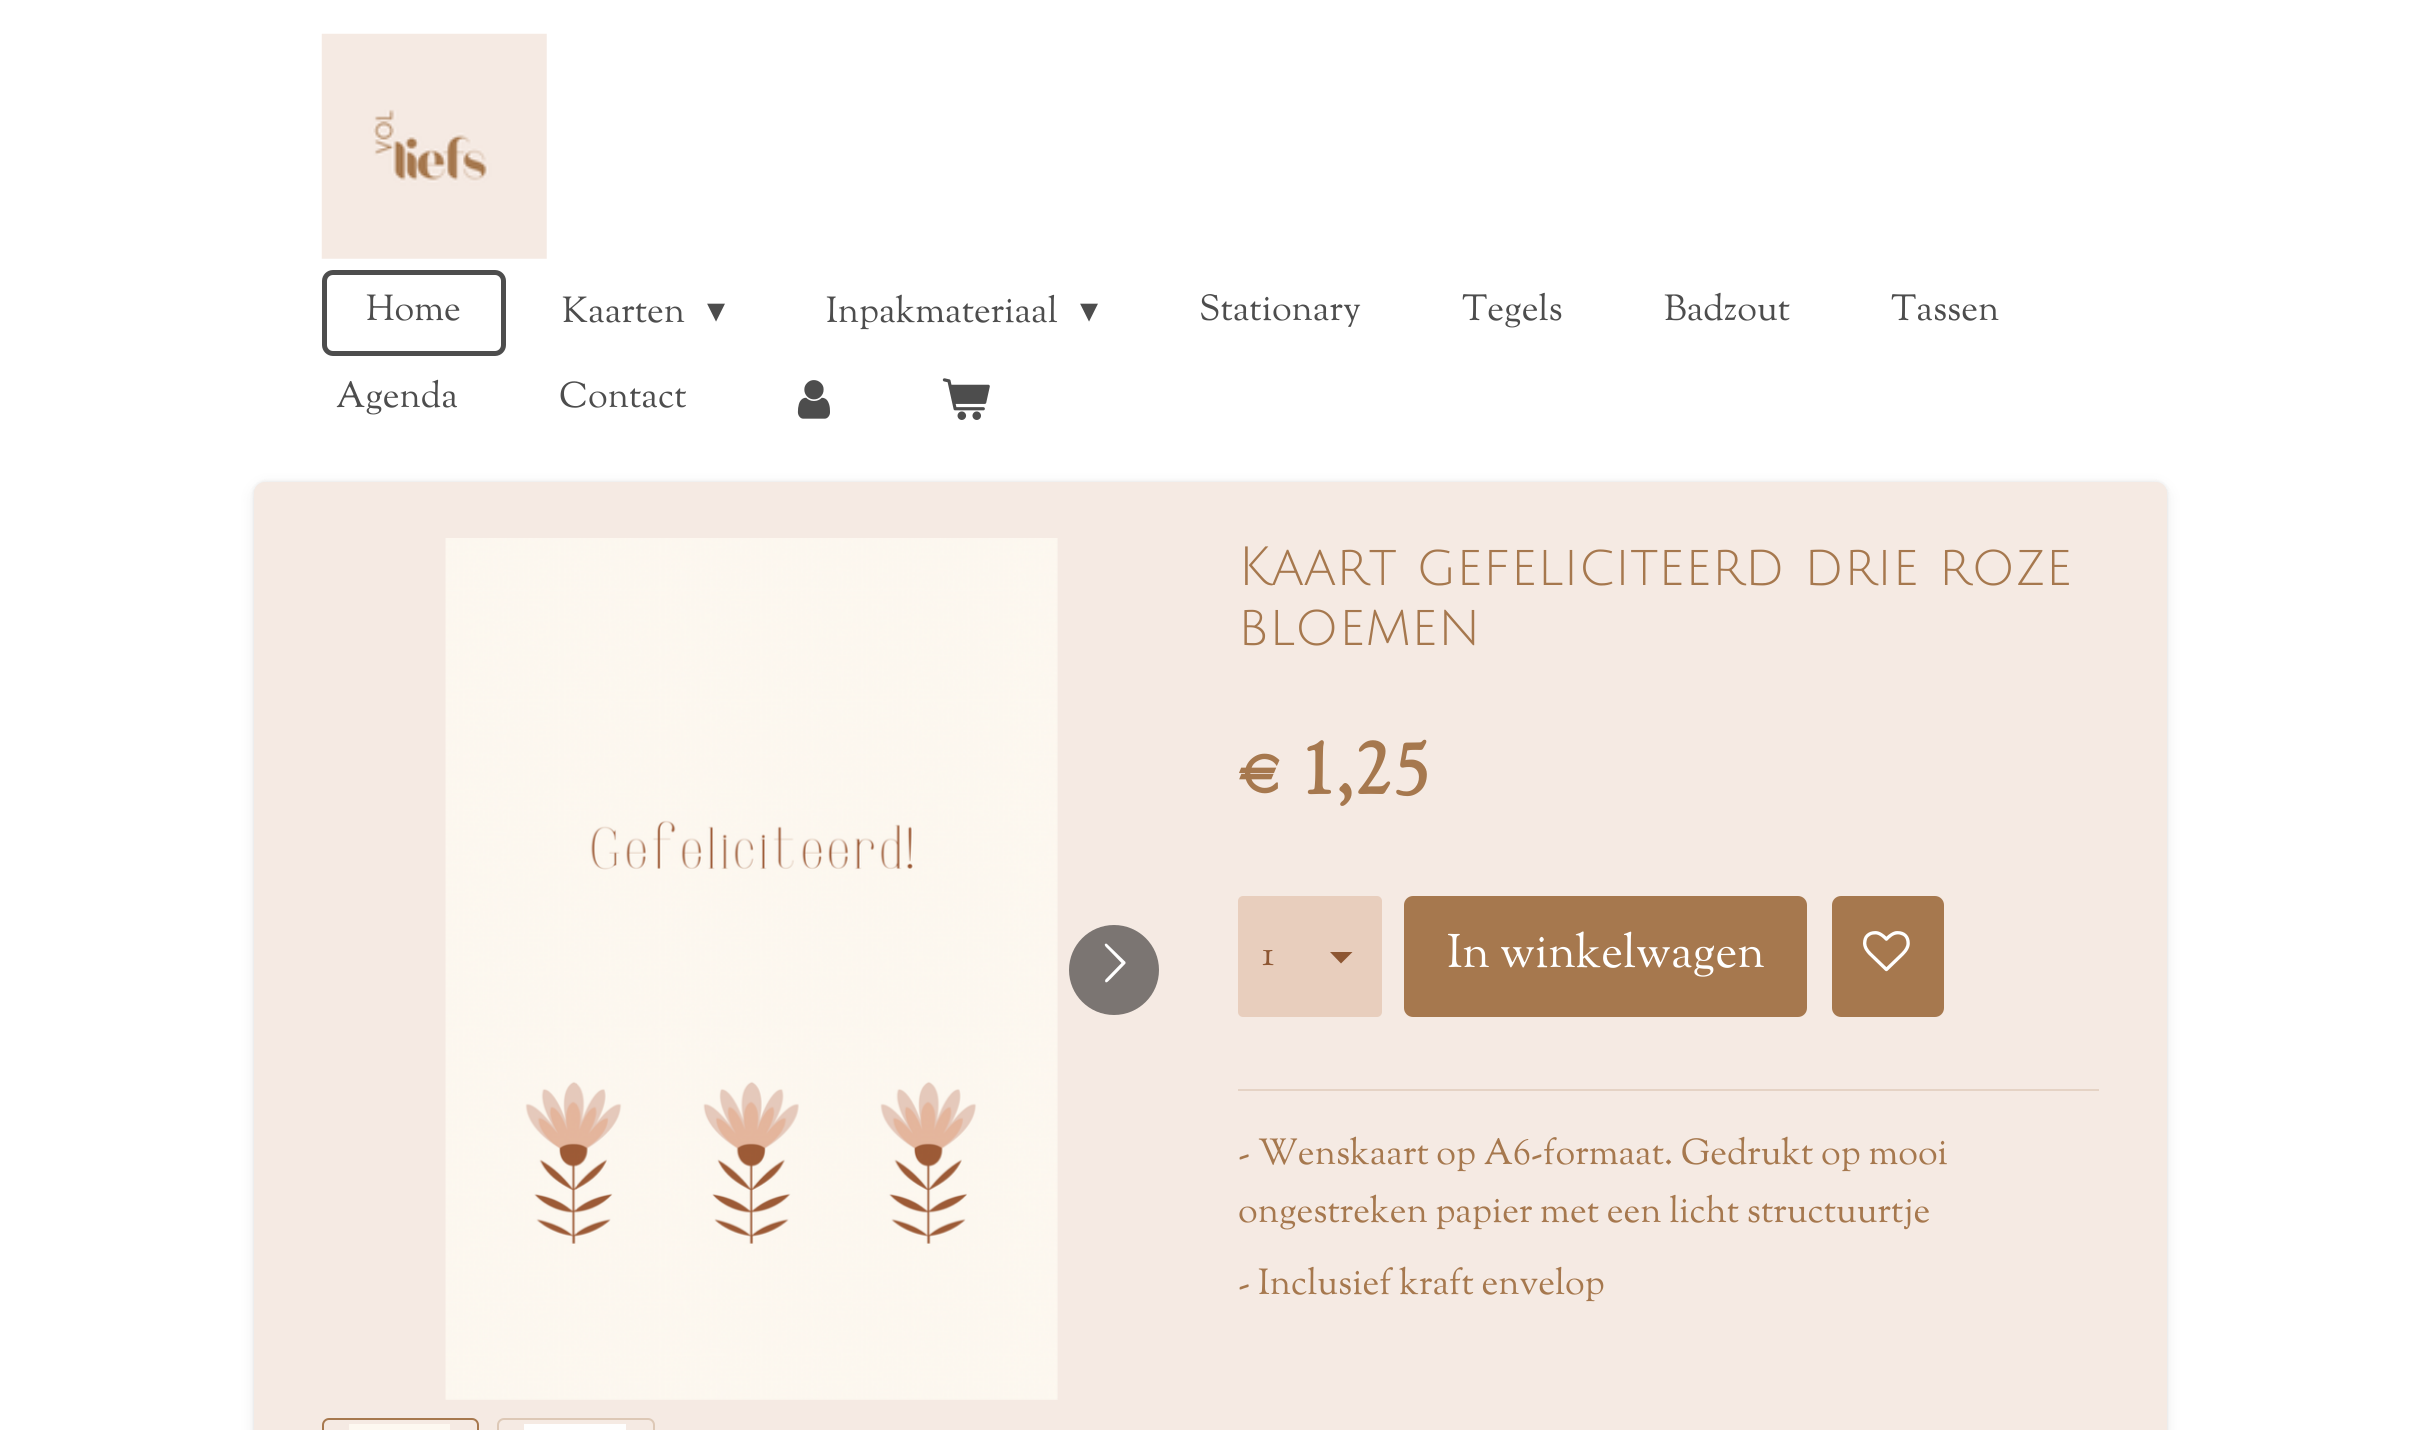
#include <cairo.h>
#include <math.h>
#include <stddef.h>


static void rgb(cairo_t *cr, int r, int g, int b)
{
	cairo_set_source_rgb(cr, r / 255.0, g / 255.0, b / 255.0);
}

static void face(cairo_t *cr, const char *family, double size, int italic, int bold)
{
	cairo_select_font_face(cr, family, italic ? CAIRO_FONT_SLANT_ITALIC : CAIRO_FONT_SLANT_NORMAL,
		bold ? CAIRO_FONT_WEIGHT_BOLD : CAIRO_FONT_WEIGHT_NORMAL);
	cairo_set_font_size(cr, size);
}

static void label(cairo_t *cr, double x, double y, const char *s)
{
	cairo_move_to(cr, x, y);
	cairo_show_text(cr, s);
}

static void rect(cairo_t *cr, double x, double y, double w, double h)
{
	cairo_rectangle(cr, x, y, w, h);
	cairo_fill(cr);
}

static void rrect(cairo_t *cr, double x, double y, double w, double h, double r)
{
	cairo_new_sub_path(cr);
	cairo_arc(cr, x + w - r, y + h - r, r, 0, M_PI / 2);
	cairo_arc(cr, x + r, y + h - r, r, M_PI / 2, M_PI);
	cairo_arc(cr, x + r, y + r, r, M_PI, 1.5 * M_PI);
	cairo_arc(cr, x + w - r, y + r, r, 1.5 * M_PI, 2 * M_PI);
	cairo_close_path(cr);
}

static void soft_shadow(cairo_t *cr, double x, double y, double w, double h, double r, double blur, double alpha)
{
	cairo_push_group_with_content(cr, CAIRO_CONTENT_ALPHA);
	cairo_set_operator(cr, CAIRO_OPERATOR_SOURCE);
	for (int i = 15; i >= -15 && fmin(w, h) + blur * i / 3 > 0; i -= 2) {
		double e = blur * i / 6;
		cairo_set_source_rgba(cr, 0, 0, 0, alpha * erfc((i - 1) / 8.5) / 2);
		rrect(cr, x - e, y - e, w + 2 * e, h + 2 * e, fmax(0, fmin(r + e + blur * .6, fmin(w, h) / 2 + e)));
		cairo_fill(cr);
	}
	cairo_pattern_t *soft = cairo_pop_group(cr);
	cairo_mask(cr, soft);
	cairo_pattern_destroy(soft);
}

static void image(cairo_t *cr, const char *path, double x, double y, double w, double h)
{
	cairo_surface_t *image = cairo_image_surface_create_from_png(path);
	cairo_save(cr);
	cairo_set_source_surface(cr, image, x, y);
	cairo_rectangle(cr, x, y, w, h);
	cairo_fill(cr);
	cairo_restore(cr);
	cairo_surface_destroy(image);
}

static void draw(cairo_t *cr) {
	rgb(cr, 255, 255, 255);
	cairo_paint(cr);
	image(cr, "image0.png", 321, 33, 226, 226);
	rrect(cr, 324.5, 272.5, 179, 81, 8.5);
	rgb(cr, 77, 77, 77);
	cairo_set_line_width(cr, 5);
	cairo_stroke(cr);
	face(cr, "Sorts Mill Goudy", 36, 0, 0);
	label(cr, 366, 320, "Home");
	label(cr, 562, 322, "Kaarten");
	face(cr, "DejaVu Sans", 36, 0, 0);
	label(cr, 707, 322, "▾");
	face(cr, "Sorts Mill Goudy", 36, 0, 0);
	label(cr, 826, 322, "Inpakmateriaal");
	face(cr, "DejaVu Sans", 36, 0, 0);
	label(cr, 1080, 322, "▾");
	face(cr, "Sorts Mill Goudy", 36, 0, 0);
	label(cr, 1199, 320, "Stationary");
	label(cr, 1462, 320, "Tegels");
	label(cr, 1664, 320, "Badzout");
	label(cr, 1891, 320, "Tassen");
	label(cr, 336, 407, "Agenda");
	label(cr, 559, 407, "Contact");
	image(cr, "image1.png", 797, 380, 33, 39);
	image(cr, "image2.png", 942, 378, 48, 42);
	rgb(cr, 0, 0, 0);
	soft_shadow(cr, 254, 482, 1913, 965, 11, 2, 0.1);
	soft_shadow(cr, 254, 486, 1913, 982, 11, 9, 0.07);
	rgb(cr, 245, 234, 227);
	rrect(cr, 254, 482, 1913, 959, 11);
	cairo_fill(cr);
	image(cr, "image3.png", 445, 538, 613, 862);
	rgb(cr, 123, 117, 114);
	cairo_arc(cr, 1114, 970, 45, 0, 2 * M_PI);
	cairo_fill(cr);
	rgb(cr, 255, 255, 255);
	cairo_new_path(cr);
	cairo_move_to(cr, 1105.5, 979.5);
	cairo_line_to(cr, 1121.5, 963);
	cairo_line_to(cr, 1108, 949);
	cairo_curve_to(cr, 1107.5, 948.5, 1102.5, 944.5, 1106, 943.5);
	cairo_line_to(cr, 1107, 944);
	cairo_line_to(cr, 1125.5, 962);
	cairo_line_to(cr, 1125.5, 962.5);
	cairo_line_to(cr, 1125.5, 963.5);
	cairo_line_to(cr, 1110.5, 979);
	cairo_curve_to(cr, 1110, 979, 1106, 985, 1105, 981);
	cairo_close_path(cr);
	cairo_fill(cr);
	rrect(cr, 323, 1419, 155, 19, 6);
	rgb(cr, 166, 120, 78);
	cairo_set_line_width(cr, 2);
	cairo_stroke(cr);
	rgb(cr, 253, 248, 240);
	rect(cr, 349, 1424, 101, 6);
	rrect(cr, 498, 1419, 156, 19, 6);
	rgb(cr, 221, 200, 182);
	cairo_stroke(cr);
	rgb(cr, 254, 254, 254);
	rect(cr, 524, 1424, 102, 6);
	face(cr, "Julius Sans One", 54, 0, 0);
	rgb(cr, 166, 120, 78);
	label(cr, 1238, 585, "Kaart gefeliciteerd drie roze");
	label(cr, 1238, 645, "bloemen");
	face(cr, "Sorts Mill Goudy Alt", 72, 0, 1);
	label(cr, 1238, 794, "€ 1,25");
	rgb(cr, 232, 206, 189);
	rrect(cr, 1238, 896, 144, 121, 5);
	cairo_fill(cr);
	rgb(cr, 141, 86, 50);
	cairo_new_path(cr);
	cairo_move_to(cr, 1341, 963.5);
	cairo_line_to(cr, 1330, 952);
	cairo_line_to(cr, 1352.5, 952);
	cairo_close_path(cr);
	cairo_fill(cr);
	face(cr, "Sorts Mill Goudy", 36, 0, 0);
	label(cr, 1262, 965, "1");
	rgb(cr, 166, 120, 78);
	rrect(cr, 1404, 896, 403, 121, 9);
	cairo_fill(cr);
	face(cr, "Sorts Mill Goudy", 46.75, 0, 0);
	rgb(cr, 255, 255, 255);
	label(cr, 1447, 967, "In winkelwagen");
	rgb(cr, 166, 120, 78);
	rrect(cr, 1832, 896, 112, 121, 9);
	cairo_fill(cr);
	image(cr, "image4.png", 1863, 931, 47, 41);
	rgb(cr, 229, 211, 197);
	rect(cr, 1238, 1089, 861, 2);
	face(cr, "Sorts Mill Goudy", 36, 0, 0);
	rgb(cr, 166, 120, 78);
	label(cr, 1238, 1164, "- Wenskaart op A6-formaat. Gedrukt op mooi");
	label(cr, 1238, 1222, "ongestreken papier met een licht structuurtje");
	label(cr, 1238, 1294, "- Inclusief kraft envelop");
}

int main(void) {
	cairo_surface_t *surface = cairo_image_surface_create(CAIRO_FORMAT_RGB24, 2417, 1430);
	cairo_t *cr = cairo_create(surface);
	cairo_font_options_t *options = cairo_font_options_create();
	cairo_font_options_set_hint_metrics(options, CAIRO_HINT_METRICS_OFF);
	cairo_font_options_set_hint_style(options, CAIRO_HINT_STYLE_NONE);
	cairo_set_font_options(cr, options);
	cairo_set_miter_limit(cr, 4);
	draw(cr);
	cairo_surface_write_to_png(surface, "render.png");
	cairo_font_options_destroy(options);
	cairo_destroy(cr);
	cairo_surface_destroy(surface);
	return 0;
}
